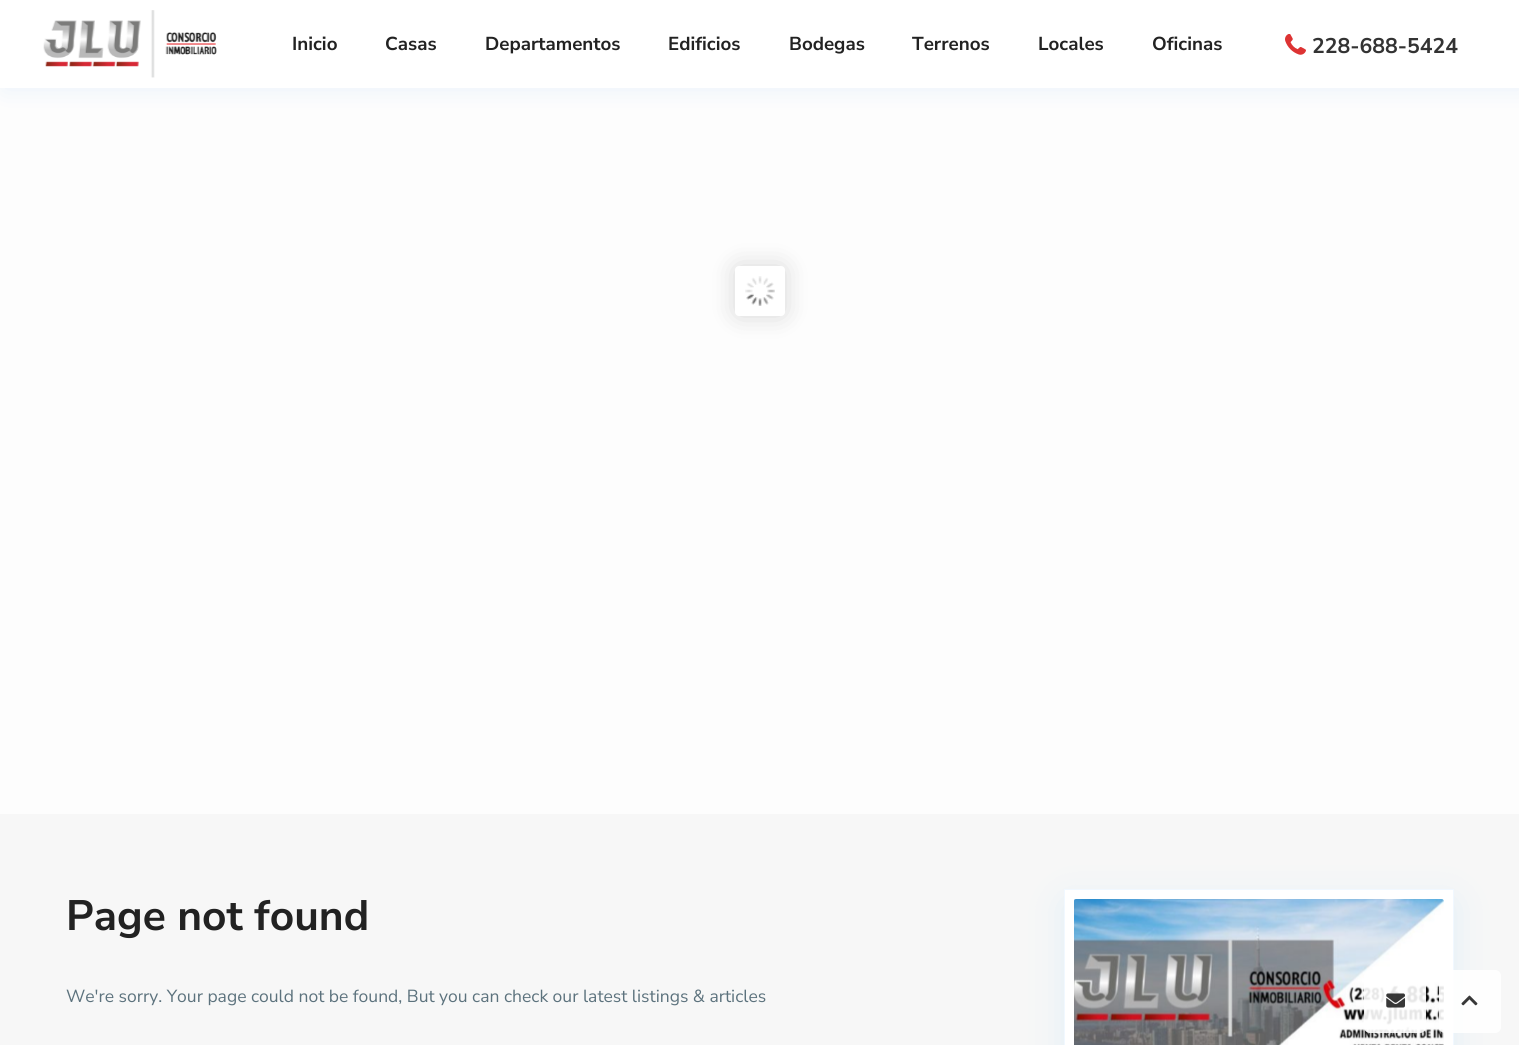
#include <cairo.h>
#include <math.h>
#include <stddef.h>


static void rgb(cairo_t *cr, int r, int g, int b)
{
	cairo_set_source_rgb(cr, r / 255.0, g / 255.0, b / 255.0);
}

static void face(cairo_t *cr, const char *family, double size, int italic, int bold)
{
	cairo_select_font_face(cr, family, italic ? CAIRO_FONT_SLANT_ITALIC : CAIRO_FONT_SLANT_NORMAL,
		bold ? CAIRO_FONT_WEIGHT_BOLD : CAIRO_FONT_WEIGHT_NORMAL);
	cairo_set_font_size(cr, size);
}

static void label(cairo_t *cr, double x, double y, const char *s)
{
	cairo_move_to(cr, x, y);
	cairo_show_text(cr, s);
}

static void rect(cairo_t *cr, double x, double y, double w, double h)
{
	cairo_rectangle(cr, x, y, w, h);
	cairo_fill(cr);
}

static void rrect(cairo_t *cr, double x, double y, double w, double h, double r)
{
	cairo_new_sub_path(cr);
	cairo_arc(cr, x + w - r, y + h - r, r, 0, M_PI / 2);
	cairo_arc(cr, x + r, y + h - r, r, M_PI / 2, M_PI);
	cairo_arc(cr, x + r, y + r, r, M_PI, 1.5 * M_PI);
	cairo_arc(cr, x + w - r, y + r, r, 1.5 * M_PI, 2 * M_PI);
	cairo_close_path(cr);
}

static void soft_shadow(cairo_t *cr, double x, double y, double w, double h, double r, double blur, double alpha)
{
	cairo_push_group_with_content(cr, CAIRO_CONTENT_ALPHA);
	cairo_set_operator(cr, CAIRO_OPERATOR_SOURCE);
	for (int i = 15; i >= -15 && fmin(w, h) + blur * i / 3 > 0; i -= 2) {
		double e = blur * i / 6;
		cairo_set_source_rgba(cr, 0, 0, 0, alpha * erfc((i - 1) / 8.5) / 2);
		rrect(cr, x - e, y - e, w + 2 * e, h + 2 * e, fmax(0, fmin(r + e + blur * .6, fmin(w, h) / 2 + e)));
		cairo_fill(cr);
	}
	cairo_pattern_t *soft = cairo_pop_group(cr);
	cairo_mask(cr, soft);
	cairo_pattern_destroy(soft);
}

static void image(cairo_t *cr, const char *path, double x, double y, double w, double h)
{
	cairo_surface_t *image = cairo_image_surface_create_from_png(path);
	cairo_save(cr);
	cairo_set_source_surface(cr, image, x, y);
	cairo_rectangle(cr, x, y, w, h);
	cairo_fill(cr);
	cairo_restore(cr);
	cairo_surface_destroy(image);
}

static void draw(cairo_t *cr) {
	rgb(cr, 247, 247, 247);
	cairo_paint(cr);
	rgb(cr, 253, 253, 253);
	rect(cr, 0, 88, 1519, 726);
	rgb(cr, 0, 110, 225);
	soft_shadow(cr, 4, 1, 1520, 88, 0, 12.5, 0.08);
	rgb(cr, 255, 255, 255);
	rect(cr, 0, 0, 1519, 88);
	image(cr, "image0.png", 43, 10, 174, 68);
	face(cr, "Nunito Sans", 18.75, 0, 1);
	rgb(cr, 34, 34, 34);
	label(cr, 292, 50, "Inicio");
	label(cr, 385, 50, "Casas");
	label(cr, 485, 50, "Departamentos");
	label(cr, 668, 50, "Edificios");
	label(cr, 789, 50, "Bodegas");
	label(cr, 912, 50, "Terrenos");
	label(cr, 1038, 50, "Locales");
	label(cr, 1152, 50, "Oficinas");
	image(cr, "image1.png", 1285, 34, 21, 21);
	face(cr, "Nunito Sans", 21.25, 0, 1);
	rgb(cr, 51, 51, 51);
	label(cr, 1312, 53, "228-688-5424");
	rgb(cr, 0, 0, 0);
	soft_shadow(cr, 735, 266, 50, 50, 4, 12.5, 0.15);
	rgb(cr, 255, 255, 255);
	rrect(cr, 735, 266, 50, 50, 4);
	cairo_fill(cr);
	image(cr, "image2.png", 745, 276, 30, 30);
	face(cr, "Nunito Sans", 42.5, 0, 1);
	rgb(cr, 34, 34, 34);
	label(cr, 66, 930, "Page not found");
	face(cr, "Nunito Sans", 17.5, 0, 0);
	rgb(cr, 92, 114, 125);
	label(cr, 66, 1002, "We're sorry. Your page could not be found, But you can check our latest listings & articles");
	rgb(cr, 7, 152, 255);
	soft_shadow(cr, 1064, 901, 390, 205, 2.5, 19.5, 0.09);
	rgb(cr, 255, 255, 255);
	cairo_rectangle(cr, 1064.5, 889.5, 389, 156);
	cairo_fill_preserve(cr);
	rgb(cr, 241, 248, 255);
	cairo_set_line_width(cr, 1);
	cairo_stroke(cr);
	image(cr, "image3.png", 1074, 899, 370, 146);
	cairo_set_source_rgba(cr, 1, 1, 1, 0.9);
	rrect(cr, 1364, 970, 62, 63, 6);
	cairo_fill(cr);
	image(cr, "image4.png", 1386, 993, 19, 15);
	rrect(cr, 1439, 970, 62, 63, 6);
	cairo_fill(cr);
	image(cr, "image5.png", 1461, 995, 17, 11);
}

int main(void) {
	cairo_surface_t *surface = cairo_image_surface_create(CAIRO_FORMAT_RGB24, 1519, 1045);
	cairo_t *cr = cairo_create(surface);
	cairo_font_options_t *options = cairo_font_options_create();
	cairo_font_options_set_hint_metrics(options, CAIRO_HINT_METRICS_OFF);
	cairo_font_options_set_hint_style(options, CAIRO_HINT_STYLE_NONE);
	cairo_set_font_options(cr, options);
	cairo_set_miter_limit(cr, 4);
	draw(cr);
	cairo_surface_write_to_png(surface, "render.png");
	cairo_font_options_destroy(options);
	cairo_destroy(cr);
	cairo_surface_destroy(surface);
	return 0;
}
